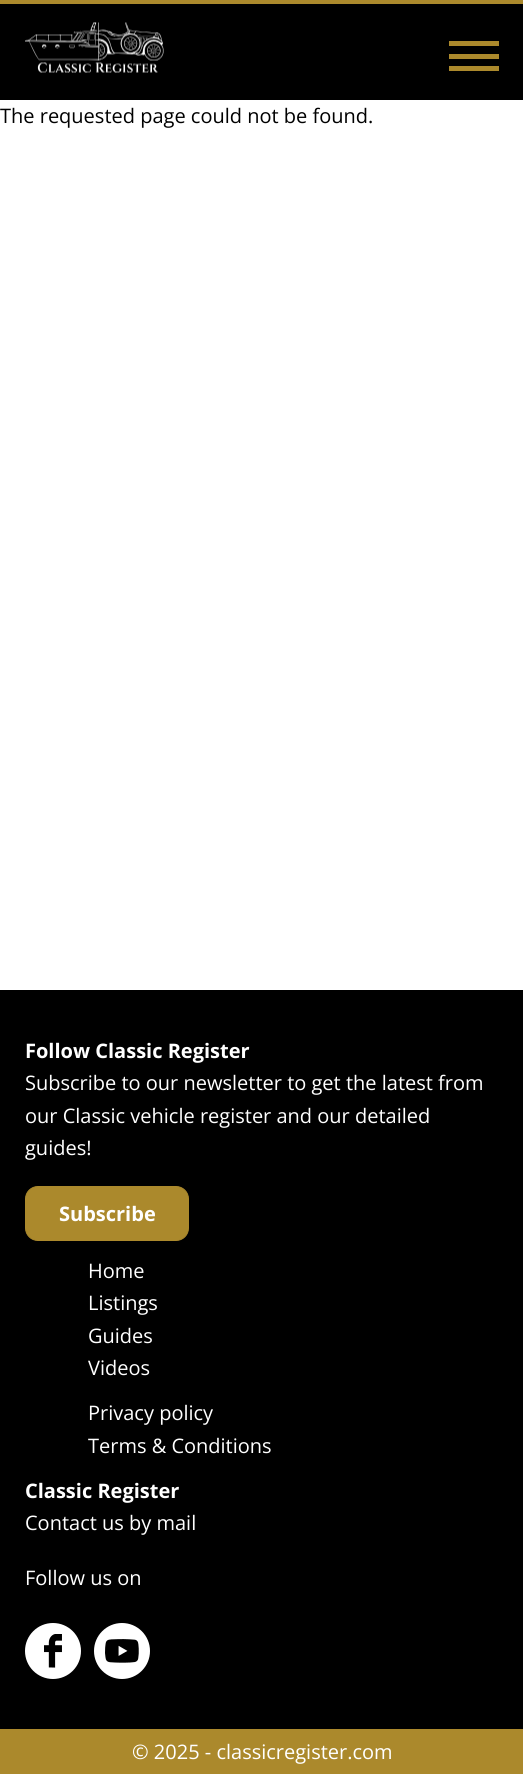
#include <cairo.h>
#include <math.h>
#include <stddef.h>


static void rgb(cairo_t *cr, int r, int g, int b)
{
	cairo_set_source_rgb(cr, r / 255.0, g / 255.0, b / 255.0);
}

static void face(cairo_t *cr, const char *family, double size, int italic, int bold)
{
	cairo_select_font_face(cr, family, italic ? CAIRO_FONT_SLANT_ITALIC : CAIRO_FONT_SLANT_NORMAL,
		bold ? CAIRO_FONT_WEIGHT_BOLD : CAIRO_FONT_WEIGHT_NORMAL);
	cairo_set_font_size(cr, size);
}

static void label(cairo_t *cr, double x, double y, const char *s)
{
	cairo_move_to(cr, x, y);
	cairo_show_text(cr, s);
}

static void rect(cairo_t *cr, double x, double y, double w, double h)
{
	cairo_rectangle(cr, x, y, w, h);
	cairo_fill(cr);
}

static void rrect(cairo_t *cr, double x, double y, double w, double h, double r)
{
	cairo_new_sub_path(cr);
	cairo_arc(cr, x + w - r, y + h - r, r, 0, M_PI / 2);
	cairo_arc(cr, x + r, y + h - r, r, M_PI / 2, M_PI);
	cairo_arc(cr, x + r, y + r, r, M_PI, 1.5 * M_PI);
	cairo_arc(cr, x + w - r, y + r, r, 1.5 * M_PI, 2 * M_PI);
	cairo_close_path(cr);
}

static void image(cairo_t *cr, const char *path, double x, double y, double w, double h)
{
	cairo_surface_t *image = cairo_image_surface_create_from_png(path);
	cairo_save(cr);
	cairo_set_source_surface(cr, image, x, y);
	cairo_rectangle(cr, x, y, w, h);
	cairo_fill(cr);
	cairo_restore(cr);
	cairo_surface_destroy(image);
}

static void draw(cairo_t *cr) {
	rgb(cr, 255, 255, 255);
	cairo_paint(cr);
	rgb(cr, 0, 0, 0);
	rect(cr, 0, 4, 523, 96);
	rgb(cr, 171, 137, 44);
	rect(cr, 0, 0, 523, 4);
	image(cr, "image0.png", 25, 22, 139, 51);
	rect(cr, 449, 54, 50, 5);
	rect(cr, 449, 41, 50, 5);
	rect(cr, 449, 66, 50, 5);
	face(cr, "Open Sans", 20, 0, 0);
	rgb(cr, 0, 0, 0);
	label(cr, 0, 123, "The requested page could not be found.");
	rect(cr, 0, 990, 523, 739);
	face(cr, "Open Sans", 20, 0, 1);
	rgb(cr, 255, 255, 255);
	label(cr, 25, 1058, "Follow Classic Register");
	face(cr, "Open Sans", 20, 0, 0);
	label(cr, 25, 1090, "Subscribe to our newsletter to get the latest from");
	label(cr, 25, 1123, "our Classic vehicle register and our detailed");
	label(cr, 25, 1155, "guides!");
	rgb(cr, 171, 137, 44);
	rrect(cr, 25.5, 1186.5, 163, 54, 12.5);
	cairo_fill_preserve(cr);
	cairo_set_line_width(cr, 1);
	cairo_stroke(cr);
	face(cr, "Open Sans", 20, 0, 1);
	rgb(cr, 255, 255, 255);
	label(cr, 59, 1221, "Subscribe");
	face(cr, "Open Sans", 20, 0, 0);
	label(cr, 88, 1278, "Home");
	label(cr, 88, 1310, "Listings");
	label(cr, 88, 1343, "Guides");
	label(cr, 88, 1375, "Videos");
	label(cr, 88, 1420, "Privacy policy");
	label(cr, 88, 1453, "Terms & Conditions");
	face(cr, "Open Sans", 20, 0, 1);
	label(cr, 25, 1498, "Classic Register");
	face(cr, "Open Sans", 20, 0, 0);
	label(cr, 25, 1530, "Contact us by mail");
	label(cr, 25, 1585, "Follow us on");
	cairo_new_path(cr);
	cairo_arc(cr, 53, 1651, 28, 0, 2 * M_PI);
	cairo_fill(cr);
	image(cr, "image1.png", 44, 1634, 18, 34);
	cairo_arc(cr, 122, 1651, 28, 0, 2 * M_PI);
	cairo_fill(cr);
	image(cr, "image2.png", 105, 1639, 34, 24);
	rgb(cr, 171, 137, 44);
	rect(cr, 0, 1729, 523, 45);
	rgb(cr, 255, 255, 255);
	label(cr, 132, 1759, "© 2025 - classicregister.com");
}

int main(void) {
	cairo_surface_t *surface = cairo_image_surface_create(CAIRO_FORMAT_RGB24, 523, 1775);
	cairo_t *cr = cairo_create(surface);
	cairo_font_options_t *options = cairo_font_options_create();
	cairo_font_options_set_hint_metrics(options, CAIRO_HINT_METRICS_OFF);
	cairo_font_options_set_hint_style(options, CAIRO_HINT_STYLE_NONE);
	cairo_set_font_options(cr, options);
	cairo_set_miter_limit(cr, 4);
	draw(cr);
	cairo_surface_write_to_png(surface, "render.png");
	cairo_font_options_destroy(options);
	cairo_destroy(cr);
	cairo_surface_destroy(surface);
	return 0;
}
